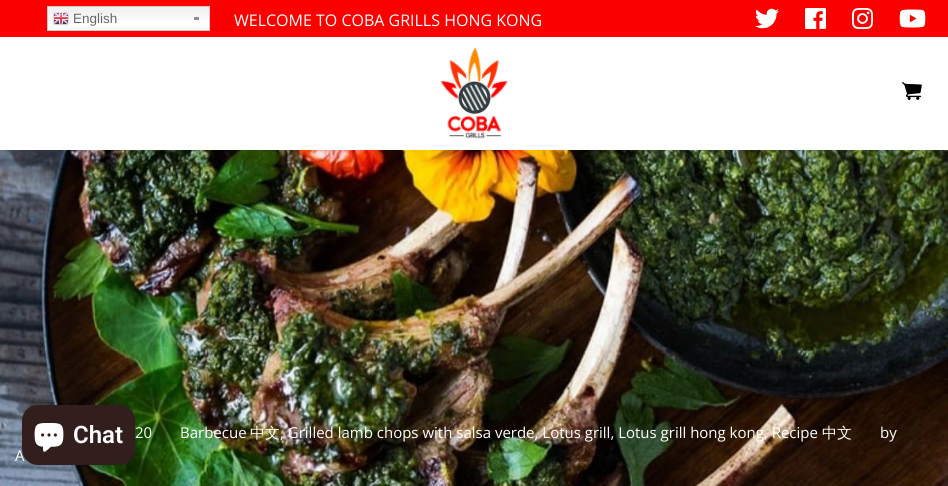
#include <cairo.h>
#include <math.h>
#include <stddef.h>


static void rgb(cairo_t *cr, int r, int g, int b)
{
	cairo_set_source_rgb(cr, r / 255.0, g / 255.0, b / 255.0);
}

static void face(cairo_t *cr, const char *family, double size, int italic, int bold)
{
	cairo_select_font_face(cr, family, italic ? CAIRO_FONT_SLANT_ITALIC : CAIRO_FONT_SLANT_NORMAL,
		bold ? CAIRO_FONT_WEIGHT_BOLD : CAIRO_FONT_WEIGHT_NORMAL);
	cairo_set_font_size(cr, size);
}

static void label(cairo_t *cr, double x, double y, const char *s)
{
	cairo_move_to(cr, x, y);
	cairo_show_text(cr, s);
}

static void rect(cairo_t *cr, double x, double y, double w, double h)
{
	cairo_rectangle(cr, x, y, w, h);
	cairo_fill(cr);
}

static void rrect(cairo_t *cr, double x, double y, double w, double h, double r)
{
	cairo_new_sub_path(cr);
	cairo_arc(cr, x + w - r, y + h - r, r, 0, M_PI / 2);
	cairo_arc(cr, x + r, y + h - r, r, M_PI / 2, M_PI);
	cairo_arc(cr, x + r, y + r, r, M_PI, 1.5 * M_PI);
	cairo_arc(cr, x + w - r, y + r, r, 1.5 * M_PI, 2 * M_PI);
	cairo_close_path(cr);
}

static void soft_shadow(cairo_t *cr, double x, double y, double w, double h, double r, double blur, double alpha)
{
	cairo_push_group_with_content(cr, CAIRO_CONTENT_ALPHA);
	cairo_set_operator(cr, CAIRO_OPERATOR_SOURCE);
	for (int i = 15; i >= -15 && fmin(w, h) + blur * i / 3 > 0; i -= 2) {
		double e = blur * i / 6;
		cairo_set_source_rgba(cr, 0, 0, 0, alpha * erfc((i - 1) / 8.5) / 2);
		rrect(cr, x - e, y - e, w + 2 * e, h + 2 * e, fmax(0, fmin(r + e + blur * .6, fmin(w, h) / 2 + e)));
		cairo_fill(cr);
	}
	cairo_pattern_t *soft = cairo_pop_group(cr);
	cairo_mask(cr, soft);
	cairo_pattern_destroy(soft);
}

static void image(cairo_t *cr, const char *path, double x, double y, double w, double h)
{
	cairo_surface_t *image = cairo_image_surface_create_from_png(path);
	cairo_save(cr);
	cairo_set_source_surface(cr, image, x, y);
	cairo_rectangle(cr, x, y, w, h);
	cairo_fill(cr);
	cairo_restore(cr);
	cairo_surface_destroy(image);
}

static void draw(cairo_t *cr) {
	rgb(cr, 255, 255, 255);
	cairo_paint(cr);
	rgb(cr, 252, 0, 0);
	rect(cr, 0, 0, 948, 37);
	rgb(cr, 255, 255, 255);
	rect(cr, 48, 20, 161, 10);
	image(cr, "image0.png", 48, 7, 161, 13);
	rgb(cr, 143, 143, 143);
	rect(cr, 194, 17, 5, 3);
	cairo_rectangle(cr, 47.5, 6.5, 162, 24);
	rgb(cr, 204, 204, 204);
	cairo_set_line_width(cr, 1);
	cairo_stroke(cr);
	image(cr, "image1.png", 53, 12, 16, 14);
	face(cr, "Liberation Sans", 13.5, 0, 0);
	rgb(cr, 102, 102, 102);
	label(cr, 73, 23, "English");
	face(cr, "Open Sans", 16, 0, 0);
	rgb(cr, 255, 255, 255);
	label(cr, 234, 26, "WELCOME TO COBA GRILLS HONG KONG");
	image(cr, "image2.png", 755, 8, 24, 21);
	image(cr, "image3.png", 805, 8, 21, 21);
	image(cr, "image4.png", 852, 8, 21, 21);
	image(cr, "image5.png", 899, 9, 27, 19);
	image(cr, "image6.png", 440, 47, 68, 92);
	image(cr, "image7.png", 902, 82, 20, 18);
	image(cr, "image8.png", 0, 150, 948, 336);
	face(cr, "Open Sans", 15, 0, 0);
	label(cr, 135, 438, "20");
	label(cr, 180, 438, "Barbecue");
	face(cr, "WenQuanYi Zen Hei Medium", 15, 0, 0);
	label(cr, 250, 438, "中文");
	face(cr, "Open Sans", 15, 0, 0);
	label(cr, 280, 438, ", Grilled lamb chops with salsa verde, Lotus grill, Lotus grill hong kong, Recipe");
	face(cr, "WenQuanYi Zen Hei Medium", 15, 0, 0);
	label(cr, 822, 438, "中文");
	face(cr, "Open Sans", 15, 0, 0);
	label(cr, 880, 438, "by");
	label(cr, 15, 461, "A");
	rgb(cr, 0, 0, 0);
	soft_shadow(cr, 22, 405, 113, 60, 16, 2.5, 0.15);
	rgb(cr, 50, 30, 29);
	rrect(cr, 22, 405, 113, 60, 16);
	cairo_fill(cr);
	image(cr, "image9.png", 34, 423, 30, 29);
	face(cr, "Roboto SemiBold", 24, 0, 0);
	rgb(cr, 255, 255, 255);
	label(cr, 73, 443, "Chat");
}

int main(void) {
	cairo_surface_t *surface = cairo_image_surface_create(CAIRO_FORMAT_RGB24, 948, 486);
	cairo_t *cr = cairo_create(surface);
	cairo_font_options_t *options = cairo_font_options_create();
	cairo_font_options_set_hint_metrics(options, CAIRO_HINT_METRICS_OFF);
	cairo_font_options_set_hint_style(options, CAIRO_HINT_STYLE_NONE);
	cairo_set_font_options(cr, options);
	cairo_set_miter_limit(cr, 4);
	draw(cr);
	cairo_surface_write_to_png(surface, "render.png");
	cairo_font_options_destroy(options);
	cairo_destroy(cr);
	cairo_surface_destroy(surface);
	return 0;
}
